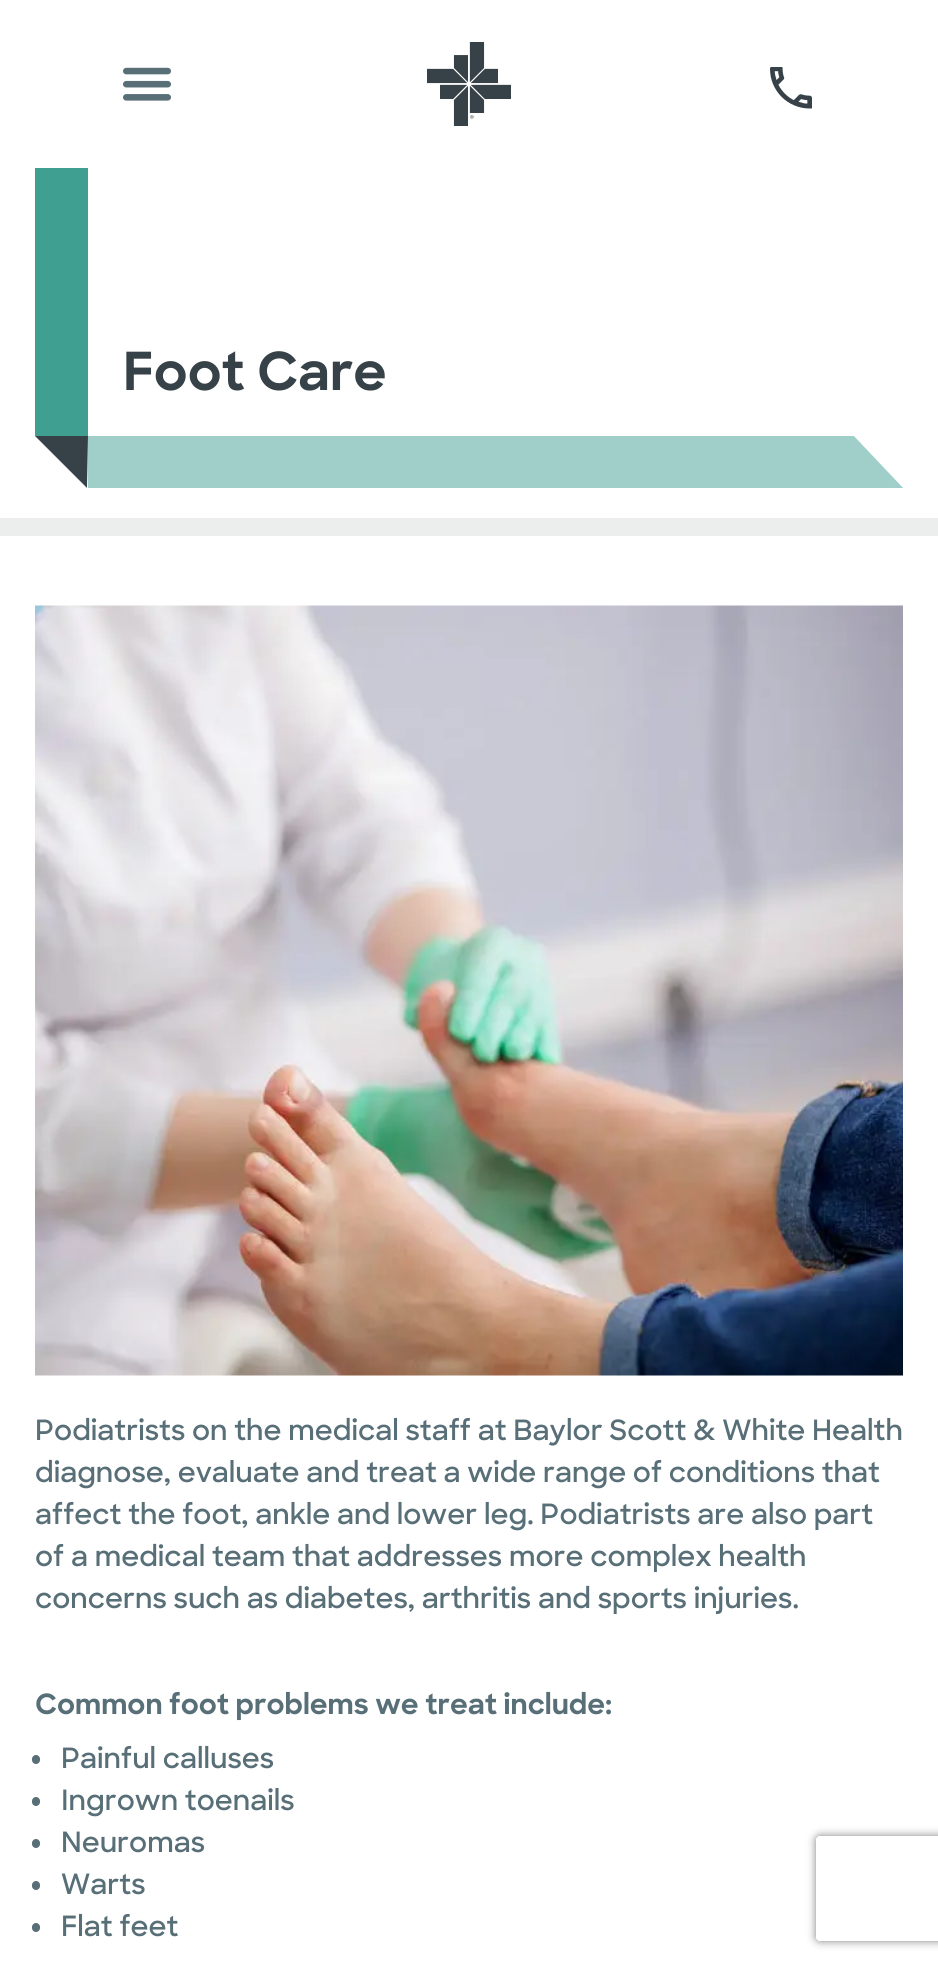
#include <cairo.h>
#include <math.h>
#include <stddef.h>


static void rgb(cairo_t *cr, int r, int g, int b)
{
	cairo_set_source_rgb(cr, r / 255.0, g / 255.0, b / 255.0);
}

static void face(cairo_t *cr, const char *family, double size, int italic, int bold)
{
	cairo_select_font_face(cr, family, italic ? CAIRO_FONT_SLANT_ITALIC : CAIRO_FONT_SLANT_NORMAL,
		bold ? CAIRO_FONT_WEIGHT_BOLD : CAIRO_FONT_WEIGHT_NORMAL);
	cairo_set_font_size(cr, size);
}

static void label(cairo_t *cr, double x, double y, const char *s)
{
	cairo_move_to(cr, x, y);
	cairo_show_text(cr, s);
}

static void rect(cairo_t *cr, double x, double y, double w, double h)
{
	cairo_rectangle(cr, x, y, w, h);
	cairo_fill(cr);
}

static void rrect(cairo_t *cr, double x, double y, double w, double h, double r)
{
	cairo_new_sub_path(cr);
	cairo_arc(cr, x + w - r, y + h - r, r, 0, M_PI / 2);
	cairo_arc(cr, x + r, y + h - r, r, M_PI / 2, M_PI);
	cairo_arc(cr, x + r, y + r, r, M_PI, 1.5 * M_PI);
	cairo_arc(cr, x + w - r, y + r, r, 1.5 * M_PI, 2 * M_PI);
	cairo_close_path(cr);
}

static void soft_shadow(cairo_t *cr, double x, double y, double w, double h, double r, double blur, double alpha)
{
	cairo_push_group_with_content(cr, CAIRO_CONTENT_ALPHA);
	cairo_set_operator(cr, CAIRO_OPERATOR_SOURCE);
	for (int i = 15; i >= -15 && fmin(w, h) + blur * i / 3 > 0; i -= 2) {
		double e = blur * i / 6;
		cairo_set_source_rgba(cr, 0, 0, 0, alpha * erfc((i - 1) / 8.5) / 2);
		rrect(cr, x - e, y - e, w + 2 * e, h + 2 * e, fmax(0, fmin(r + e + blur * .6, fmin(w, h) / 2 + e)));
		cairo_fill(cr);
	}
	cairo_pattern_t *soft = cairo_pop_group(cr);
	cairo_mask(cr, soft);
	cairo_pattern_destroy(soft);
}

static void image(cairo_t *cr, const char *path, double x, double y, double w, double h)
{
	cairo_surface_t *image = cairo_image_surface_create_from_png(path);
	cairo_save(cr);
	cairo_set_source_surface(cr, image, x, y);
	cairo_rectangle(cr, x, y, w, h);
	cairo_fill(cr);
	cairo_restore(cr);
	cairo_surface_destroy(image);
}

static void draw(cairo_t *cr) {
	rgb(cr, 236, 237, 237);
	cairo_paint(cr);
	rgb(cr, 255, 255, 255);
	rect(cr, 0, 0, 938, 518);
	image(cr, "image0.png", 123, 67, 48, 34);
	image(cr, "image1.png", 427, 42, 84, 84);
	image(cr, "image2.png", 770, 67, 42, 42);
	rgb(cr, 63, 159, 144);
	rect(cr, 35, 168, 53, 268);
	rgb(cr, 54, 66, 72);
	cairo_new_path(cr);
	cairo_move_to(cr, 87, 488);
	cairo_line_to(cr, 35, 436);
	cairo_line_to(cr, 88, 436);
	cairo_close_path(cr);
	cairo_fill(cr);
	face(cr, "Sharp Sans", 52.5, 0, 1);
	label(cr, 123, 390, "Foot Care");
	rgb(cr, 159, 207, 200);
	rect(cr, 88, 436, 815, 52);
	rgb(cr, 255, 255, 255);
	cairo_new_path(cr);
	cairo_move_to(cr, 852, 434);
	cairo_line_to(cr, 905, 490);
	cairo_line_to(cr, 905, 434);
	cairo_close_path(cr);
	cairo_fill(cr);
	rect(cr, 0, 536, 938, 1428);
	image(cr, "image3.png", 35, 605, 868, 771);
	face(cr, "Sharp Sans SemiBold", 28, 0, 0);
	rgb(cr, 88, 111, 120);
	label(cr, 35, 1440, "Podiatrists on the medical staff at Baylor Scott & White Health");
	label(cr, 35, 1482, "diagnose, evaluate and treat a wide range of conditions that");
	label(cr, 35, 1524, "affect the foot, ankle and lower leg. Podiatrists are also part");
	label(cr, 35, 1566, "of a medical team that addresses more complex health");
	label(cr, 35, 1608, "concerns such as diabetes, arthritis and sports injuries.");
	face(cr, "Sharp Sans", 28, 0, 1);
	label(cr, 35, 1714, "Common foot problems we treat include:");
	rrect(cr, 32, 1755, 8, 9, 4);
	cairo_fill(cr);
	face(cr, "Sharp Sans SemiBold", 28, 0, 0);
	label(cr, 61, 1768, "Painful calluses");
	rrect(cr, 32, 1797, 8, 9, 4);
	cairo_fill(cr);
	label(cr, 61, 1810, "Ingrown toenails");
	rrect(cr, 32, 1839, 8, 9, 4);
	cairo_fill(cr);
	label(cr, 61, 1852, "Neuromas");
	rrect(cr, 32, 1881, 8, 9, 4);
	cairo_fill(cr);
	label(cr, 61, 1894, "Warts");
	rrect(cr, 32, 1923, 8, 9, 4);
	cairo_fill(cr);
	label(cr, 61, 1936, "Flat feet");
	cairo_save(cr);
	cairo_set_fill_rule(cr, CAIRO_FILL_RULE_EVEN_ODD);
	cairo_new_path(cr);
	cairo_move_to(cr, 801, 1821);
	cairo_line_to(cr, 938, 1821);
	cairo_line_to(cr, 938, 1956);
	cairo_line_to(cr, 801, 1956);
	cairo_close_path(cr);
	cairo_move_to(cr, 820, 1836);
	cairo_line_to(cr, 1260, 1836);
	cairo_curve_to(cr, 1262, 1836, 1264, 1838, 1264, 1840);
	cairo_line_to(cr, 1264, 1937);
	cairo_curve_to(cr, 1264, 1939, 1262, 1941, 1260, 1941);
	cairo_line_to(cr, 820, 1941);
	cairo_curve_to(cr, 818, 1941, 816, 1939, 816, 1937);
	cairo_line_to(cr, 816, 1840);
	cairo_curve_to(cr, 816, 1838, 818, 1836, 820, 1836);
	cairo_close_path(cr);
	cairo_clip(cr);
	rgb(cr, 128, 128, 128);
	soft_shadow(cr, 816, 1836, 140, 105, 4, 4.5, 1);
	cairo_restore(cr);
}

int main(void) {
	cairo_surface_t *surface = cairo_image_surface_create(CAIRO_FORMAT_RGB24, 938, 1964);
	cairo_t *cr = cairo_create(surface);
	cairo_font_options_t *options = cairo_font_options_create();
	cairo_font_options_set_hint_metrics(options, CAIRO_HINT_METRICS_OFF);
	cairo_font_options_set_hint_style(options, CAIRO_HINT_STYLE_NONE);
	cairo_set_font_options(cr, options);
	cairo_set_miter_limit(cr, 4);
	draw(cr);
	cairo_surface_write_to_png(surface, "render.png");
	cairo_font_options_destroy(options);
	cairo_destroy(cr);
	cairo_surface_destroy(surface);
	return 0;
}
